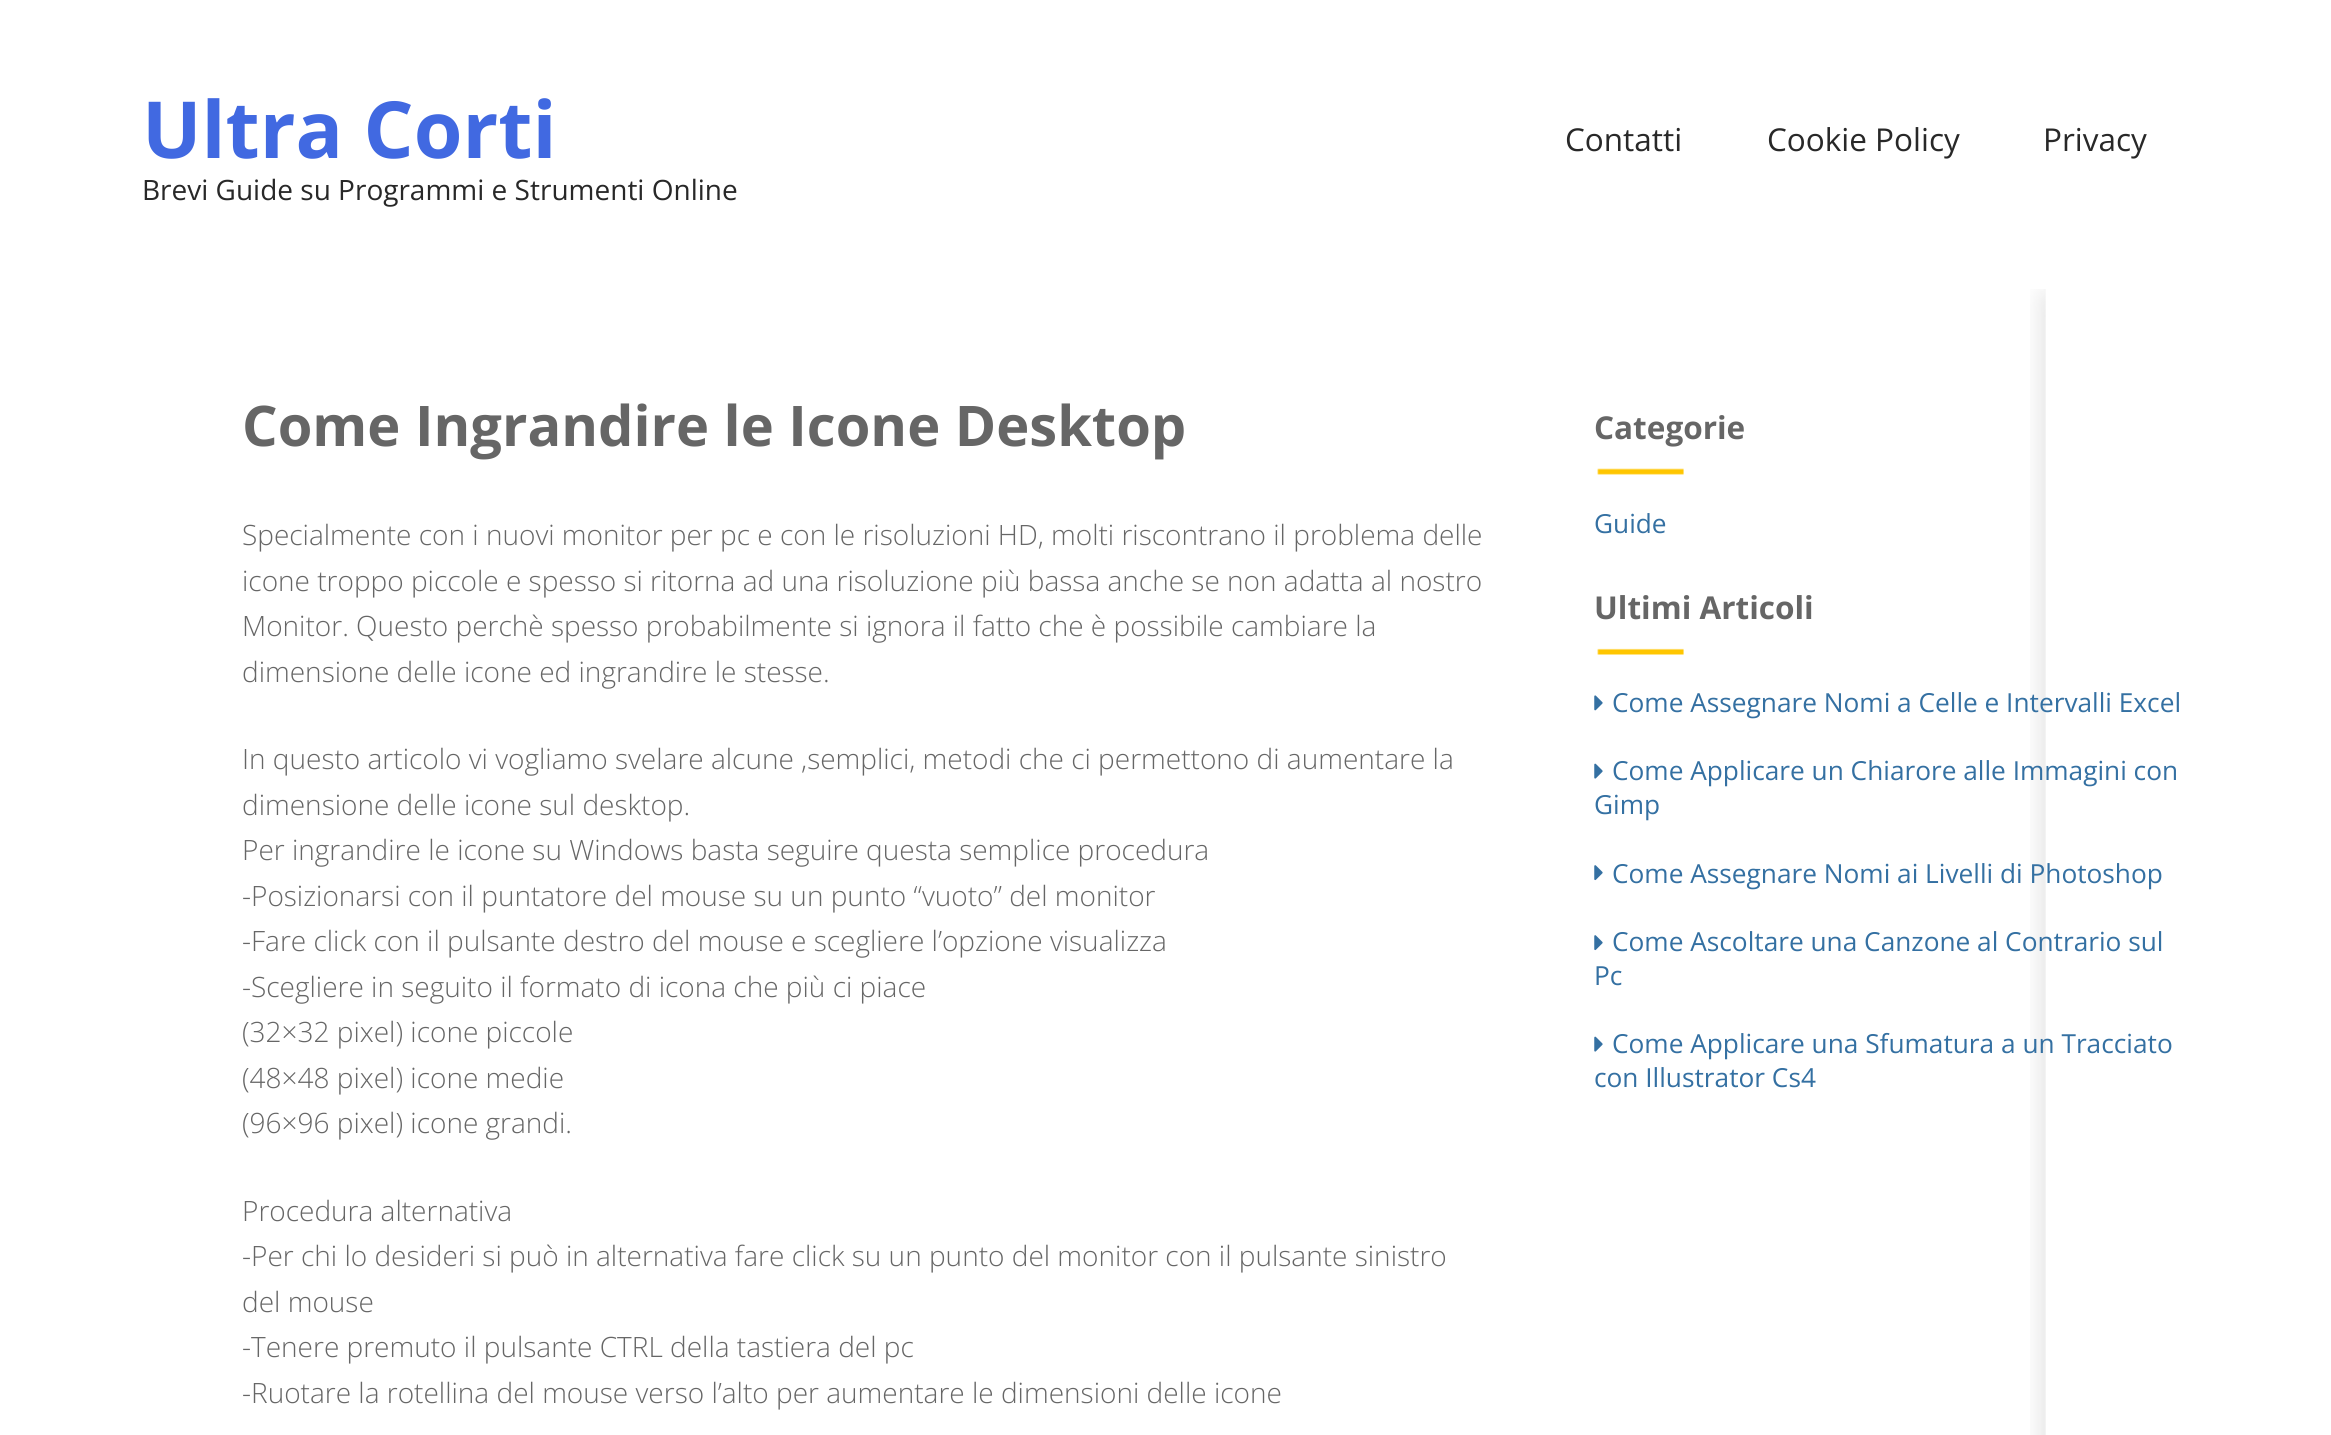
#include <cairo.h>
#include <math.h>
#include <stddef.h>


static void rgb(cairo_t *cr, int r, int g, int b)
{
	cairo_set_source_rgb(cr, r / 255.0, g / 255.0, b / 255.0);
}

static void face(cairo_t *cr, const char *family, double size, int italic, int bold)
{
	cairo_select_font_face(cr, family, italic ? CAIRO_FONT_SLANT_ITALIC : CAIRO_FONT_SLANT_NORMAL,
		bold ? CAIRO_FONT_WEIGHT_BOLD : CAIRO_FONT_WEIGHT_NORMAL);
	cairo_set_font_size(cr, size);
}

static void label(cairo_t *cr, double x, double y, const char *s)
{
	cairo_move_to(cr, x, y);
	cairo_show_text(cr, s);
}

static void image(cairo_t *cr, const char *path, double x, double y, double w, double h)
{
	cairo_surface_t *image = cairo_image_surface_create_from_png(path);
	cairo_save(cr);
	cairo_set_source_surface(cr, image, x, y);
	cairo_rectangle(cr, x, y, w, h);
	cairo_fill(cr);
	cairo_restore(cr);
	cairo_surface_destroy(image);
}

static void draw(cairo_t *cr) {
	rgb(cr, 255, 255, 255);
	cairo_paint(cr);
	face(cr, "Open Sans", 78.75, 0, 1);
	rgb(cr, 65, 105, 225);
	label(cr, 142, 158, "Ultra Corti");
	face(cr, "Open Sans", 28, 0, 0);
	rgb(cr, 40, 40, 40);
	label(cr, 142, 200, "Brevi Guide su Programmi e Strumenti Online");
	face(cr, "Open Sans", 31.5, 0, 0);
	label(cr, 1565, 151, "Contatti");
	label(cr, 1767, 151, "Cookie Policy");
	label(cr, 2043, 151, "Privacy");
	image(cr, "image0.png", 2030, 289, 16, 1146);
	face(cr, "Open Sans", 56, 0, 1);
	rgb(cr, 102, 102, 102);
	label(cr, 242, 446, "Come Ingrandire le Icone Desktop");
	face(cr, "Open Sans Light", 28, 0, 0);
	label(cr, 242, 545, "Specialmente con i nuovi monitor per pc e con le risoluzioni HD, molti riscontrano il problema delle");
	label(cr, 242, 591, "icone troppo piccole e spesso si ritorna ad una risoluzione più bassa anche se non adatta al nostro");
	label(cr, 242, 636, "Monitor. Questo perchè spesso probabilmente si ignora il fatto che è possibile cambiare la");
	label(cr, 242, 682, "dimensione delle icone ed ingrandire le stesse.");
	label(cr, 242, 769, "In questo articolo vi vogliamo svelare alcune ,semplici, metodi che ci permettono di aumentare la");
	label(cr, 242, 815, "dimensione delle icone sul desktop.");
	label(cr, 242, 860, "Per ingrandire le icone su Windows basta seguire questa semplice procedura");
	label(cr, 242, 906, "-Posizionarsi con il puntatore del mouse su un punto “vuoto” del monitor");
	label(cr, 242, 951, "-Fare click con il pulsante destro del mouse e scegliere l’opzione visualizza");
	label(cr, 242, 997, "-Scegliere in seguito il formato di icona che più ci piace");
	label(cr, 242, 1042, "(32×32 pixel) icone piccole");
	label(cr, 242, 1088, "(48×48 pixel) icone medie");
	label(cr, 242, 1133, "(96×96 pixel) icone grandi.");
	label(cr, 242, 1221, "Procedura alternativa");
	label(cr, 242, 1266, "-Per chi lo desideri si può in alternativa fare click su un punto del monitor con il pulsante sinistro");
	label(cr, 242, 1312, "del mouse");
	label(cr, 242, 1357, "-Tenere premuto il pulsante CTRL della tastiera del pc");
	label(cr, 242, 1403, "-Ruotare la rotellina del mouse verso l’alto per aumentare le dimensioni delle icone");
	image(cr, "image1.png", 1597, 468, 87, 7);
	face(cr, "Open Sans", 31.5, 0, 1);
	label(cr, 1594, 439, "Categorie");
	face(cr, "Open Sans", 26.25, 0, 0);
	rgb(cr, 52, 112, 162);
	label(cr, 1594, 533, "Guide");
	image(cr, "image2.png", 1597, 648, 87, 7);
	face(cr, "Open Sans", 31.5, 0, 1);
	rgb(cr, 102, 102, 102);
	label(cr, 1594, 619, "Ultimi Articoli");
	image(cr, "image3.png", 1594, 695, 9, 16);
	face(cr, "Open Sans", 26.25, 0, 0);
	rgb(cr, 52, 112, 162);
	label(cr, 1612, 712, "Come Assegnare Nomi a Celle e Intervalli Excel");
	image(cr, "image4.png", 1594, 763, 9, 16);
	label(cr, 1612, 780, "Come Applicare un Chiarore alle Immagini con");
	label(cr, 1594, 814, "Gimp");
	image(cr, "image5.png", 1594, 865, 9, 16);
	label(cr, 1612, 883, "Come Assegnare Nomi ai Livelli di Photoshop");
	image(cr, "image5.png", 1594, 935, 9, 16);
	label(cr, 1612, 951, "Come Ascoltare una Canzone al Contrario sul");
	label(cr, 1594, 985, "Pc");
	image(cr, "image4.png", 1594, 1036, 9, 16);
	label(cr, 1612, 1053, "Come Applicare una Sfumatura a un Tracciato");
	label(cr, 1594, 1087, "con Illustrator Cs4");
}

int main(void) {
	cairo_surface_t *surface = cairo_image_surface_create(CAIRO_FORMAT_RGB24, 2331, 1435);
	cairo_t *cr = cairo_create(surface);
	cairo_font_options_t *options = cairo_font_options_create();
	cairo_font_options_set_hint_metrics(options, CAIRO_HINT_METRICS_OFF);
	cairo_font_options_set_hint_style(options, CAIRO_HINT_STYLE_NONE);
	cairo_set_font_options(cr, options);
	cairo_set_miter_limit(cr, 4);
	draw(cr);
	cairo_surface_write_to_png(surface, "render.png");
	cairo_font_options_destroy(options);
	cairo_destroy(cr);
	cairo_surface_destroy(surface);
	return 0;
}
